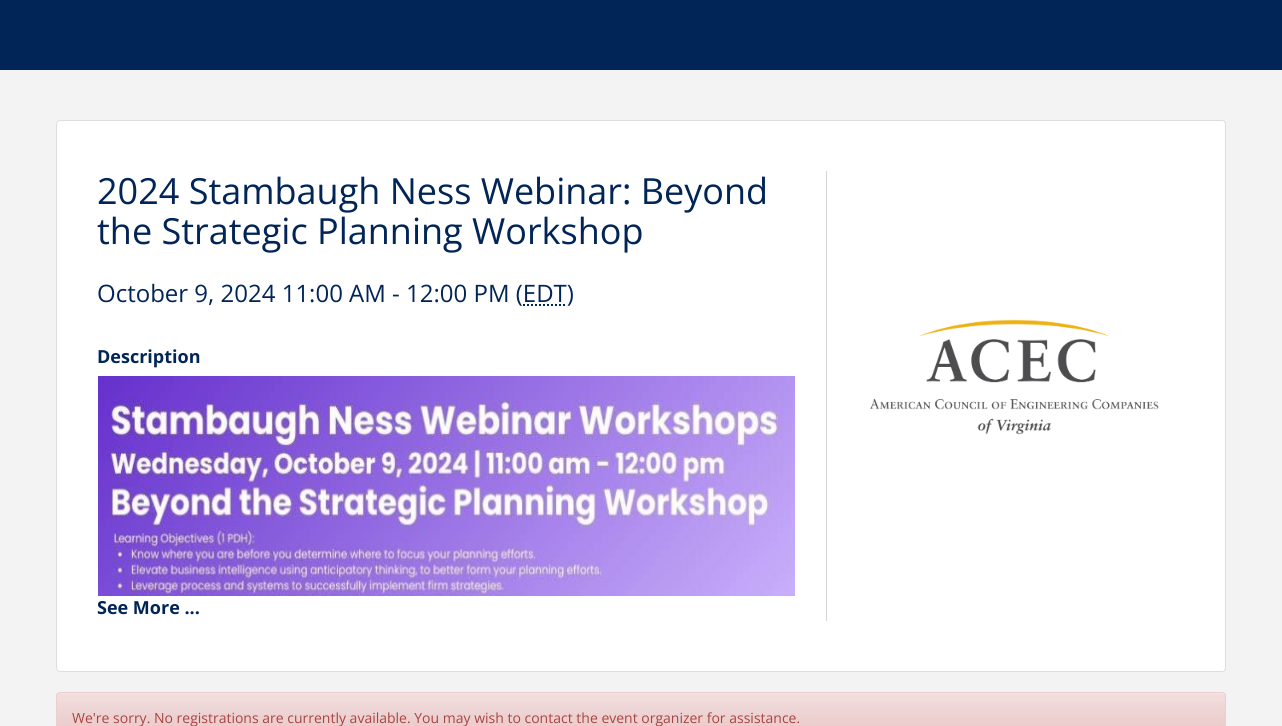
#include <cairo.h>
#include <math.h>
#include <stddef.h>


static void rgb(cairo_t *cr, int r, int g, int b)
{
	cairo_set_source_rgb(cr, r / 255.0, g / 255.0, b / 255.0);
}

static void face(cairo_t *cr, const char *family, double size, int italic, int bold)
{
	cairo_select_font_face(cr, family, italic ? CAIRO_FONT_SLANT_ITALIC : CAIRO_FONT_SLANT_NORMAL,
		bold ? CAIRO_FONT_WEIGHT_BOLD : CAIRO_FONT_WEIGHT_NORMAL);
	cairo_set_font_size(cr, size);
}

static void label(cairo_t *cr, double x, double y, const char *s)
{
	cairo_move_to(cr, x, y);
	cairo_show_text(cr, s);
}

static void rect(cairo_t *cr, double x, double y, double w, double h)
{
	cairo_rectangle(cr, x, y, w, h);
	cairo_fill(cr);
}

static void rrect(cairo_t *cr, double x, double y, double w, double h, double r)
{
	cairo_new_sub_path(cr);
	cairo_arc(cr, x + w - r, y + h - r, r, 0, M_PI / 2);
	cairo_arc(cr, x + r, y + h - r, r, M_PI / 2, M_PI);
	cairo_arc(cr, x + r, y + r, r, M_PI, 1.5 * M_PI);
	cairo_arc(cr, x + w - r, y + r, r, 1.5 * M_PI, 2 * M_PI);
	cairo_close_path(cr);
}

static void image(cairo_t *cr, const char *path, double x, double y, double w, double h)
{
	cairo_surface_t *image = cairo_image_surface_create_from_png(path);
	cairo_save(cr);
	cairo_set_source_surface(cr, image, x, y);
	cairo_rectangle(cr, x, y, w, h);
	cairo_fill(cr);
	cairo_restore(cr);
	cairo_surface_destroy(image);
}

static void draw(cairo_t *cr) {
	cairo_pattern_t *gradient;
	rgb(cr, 243, 243, 243);
	cairo_paint(cr);
	rgb(cr, 2, 37, 88);
	rect(cr, 0, 0, 1282, 70);
	rgb(cr, 255, 255, 255);
	rrect(cr, 56.5, 120.5, 1169, 551, 3.5);
	cairo_fill_preserve(cr);
	rgb(cr, 221, 221, 221);
	cairo_set_line_width(cr, 1);
	cairo_stroke(cr);
	rgb(cr, 212, 212, 212);
	rect(cr, 826, 171, 1, 450);
	face(cr, "Open Sans", 36, 0, 0);
	rgb(cr, 2, 37, 88);
	label(cr, 97, 204, "2024 Stambaugh Ness Webinar: Beyond");
	label(cr, 97, 244, "the Strategic Planning Workshop");
	face(cr, "Open Sans", 24, 0, 0);
	label(cr, 97, 302, "October 9, 2024 11:00 AM - 12:00 PM (EDT)");
	cairo_new_path(cr);
	cairo_move_to(cr, 523, 305);
	cairo_line_to(cr, 567, 305);
	cairo_set_line_width(cr, 2);
	cairo_set_dash(cr, (double[]){2, 2}, 2, 0);
	cairo_stroke(cr);
	face(cr, "Open Sans", 18, 0, 1);
	label(cr, 97, 363, "Description");
	image(cr, "image0.png", 98, 376, 697, 220);
	label(cr, 97, 614, "See More ...");
	image(cr, "image1.png", 869, 319, 290, 116);
	cairo_save(cr);
	rrect(cr, 56, 692, 1170, 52, 4);
	cairo_clip(cr);
	gradient = cairo_pattern_create_linear(641, 693, 641, 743);
	cairo_pattern_add_color_stop_rgba(gradient, 0, 0.949, 0.871, 0.871, 1);
	cairo_pattern_add_color_stop_rgba(gradient, 1, 0.906, 0.765, 0.765, 1);
	cairo_set_source(cr, gradient);
	cairo_pattern_destroy(gradient);
	rect(cr, 56, 693, 1170, 33);
	cairo_restore(cr);
	rgb(cr, 245, 230, 230);
	cairo_new_path(cr);
	cairo_move_to(cr, 60, 694);
	cairo_line_to(cr, 1222, 694);
	cairo_curve_to(cr, 1224, 694, 1225, 695, 1225, 697);
	cairo_line_to(cr, 1225, 696);
	cairo_curve_to(cr, 1225, 694, 1224, 693, 1222, 693);
	cairo_line_to(cr, 60, 693);
	cairo_curve_to(cr, 58, 693, 57, 694, 57, 696);
	cairo_line_to(cr, 57, 697);
	cairo_curve_to(cr, 57, 695, 58, 694, 60, 694);
	cairo_close_path(cr);
	cairo_fill(cr);
	rrect(cr, 56.5, 692.5, 1169, 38, 3.5);
	rgb(cr, 235, 204, 209);
	cairo_set_line_width(cr, 1);
	cairo_set_dash(cr, NULL, 0, 0);
	cairo_stroke(cr);
	face(cr, "Open Sans", 14, 0, 0);
	rgb(cr, 169, 68, 66);
	label(cr, 72, 723, "We're sorry. No registrations are currently available. You may wish to contact the event organizer for assistance.");
}

int main(void) {
	cairo_surface_t *surface = cairo_image_surface_create(CAIRO_FORMAT_RGB24, 1282, 726);
	cairo_t *cr = cairo_create(surface);
	cairo_font_options_t *options = cairo_font_options_create();
	cairo_font_options_set_hint_metrics(options, CAIRO_HINT_METRICS_OFF);
	cairo_font_options_set_hint_style(options, CAIRO_HINT_STYLE_NONE);
	cairo_set_font_options(cr, options);
	cairo_set_miter_limit(cr, 4);
	draw(cr);
	cairo_surface_write_to_png(surface, "render.png");
	cairo_font_options_destroy(options);
	cairo_destroy(cr);
	cairo_surface_destroy(surface);
	return 0;
}
